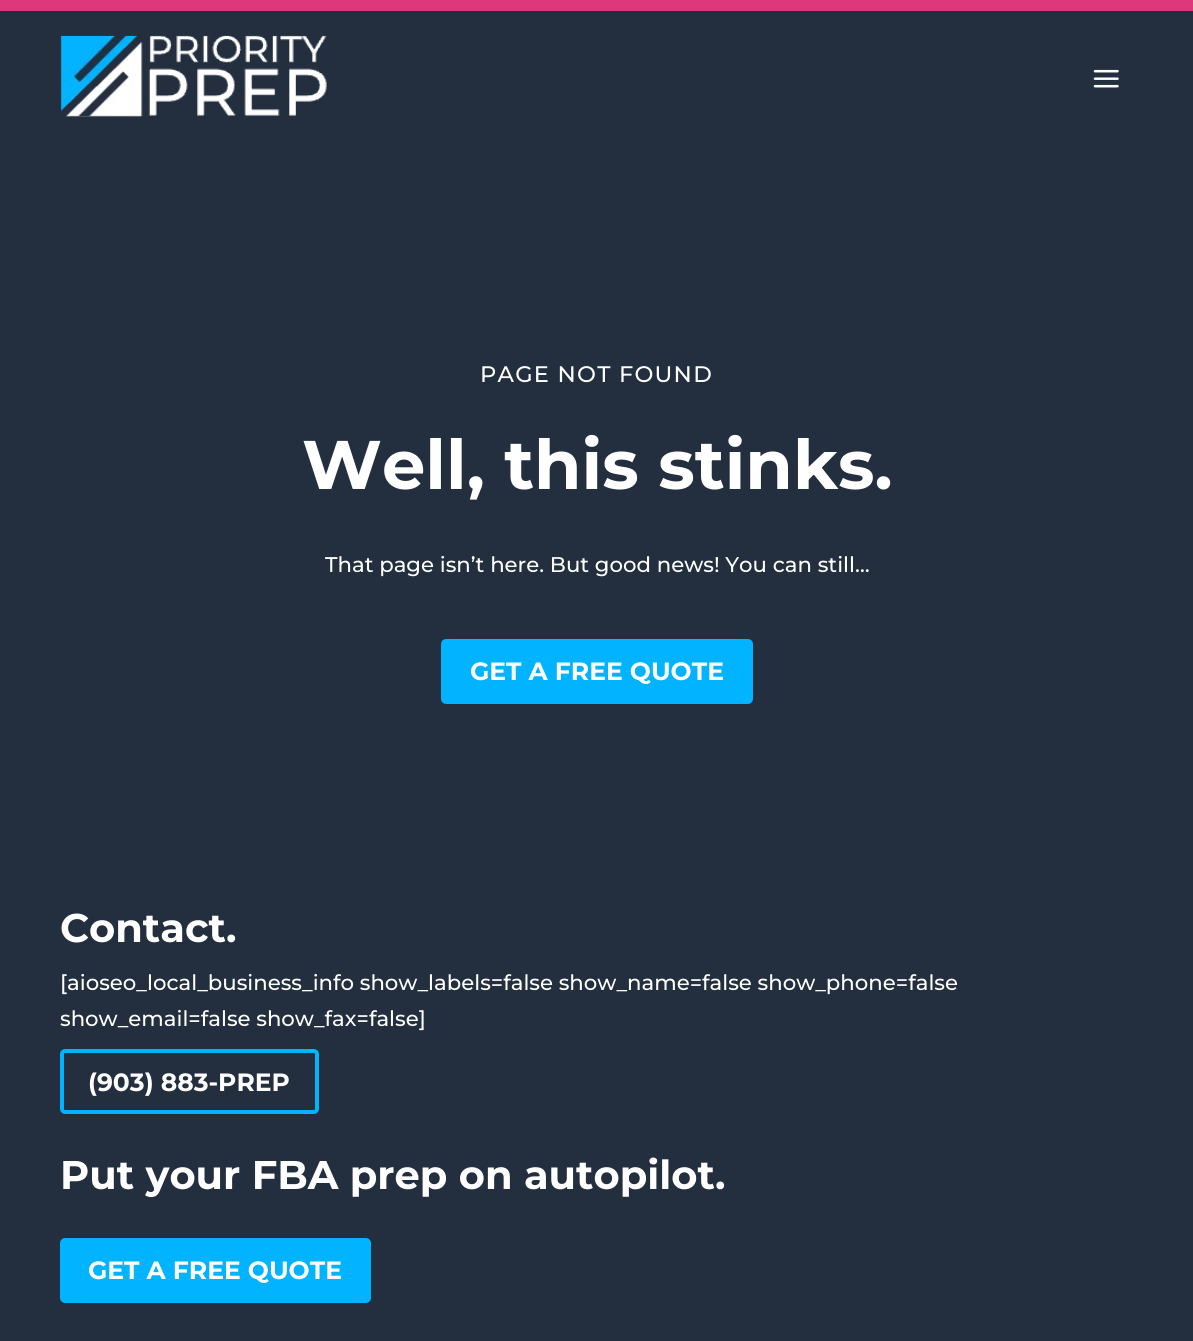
#include <cairo.h>
#include <math.h>
#include <stddef.h>


static void rgb(cairo_t *cr, int r, int g, int b)
{
	cairo_set_source_rgb(cr, r / 255.0, g / 255.0, b / 255.0);
}

static void face(cairo_t *cr, const char *family, double size, int italic, int bold)
{
	cairo_select_font_face(cr, family, italic ? CAIRO_FONT_SLANT_ITALIC : CAIRO_FONT_SLANT_NORMAL,
		bold ? CAIRO_FONT_WEIGHT_BOLD : CAIRO_FONT_WEIGHT_NORMAL);
	cairo_set_font_size(cr, size);
}

static void label(cairo_t *cr, double x, double y, const char *s)
{
	cairo_move_to(cr, x, y);
	cairo_show_text(cr, s);
}

static void tracked(cairo_t *cr, double x, double y, const char *s, double letter, double word)
{
	cairo_move_to(cr, x, y);
	while (*s) {
		char ch[5] = {0};
		int n = 0;
		do ch[n++] = *s++; while ((*s & 0xC0) == 0x80);
		cairo_show_text(cr, ch);
		cairo_rel_move_to(cr, letter + word * (*ch == ' '), 0);
	}
}

static void rect(cairo_t *cr, double x, double y, double w, double h)
{
	cairo_rectangle(cr, x, y, w, h);
	cairo_fill(cr);
}

static void rrect(cairo_t *cr, double x, double y, double w, double h, double r)
{
	cairo_new_sub_path(cr);
	cairo_arc(cr, x + w - r, y + h - r, r, 0, M_PI / 2);
	cairo_arc(cr, x + r, y + h - r, r, M_PI / 2, M_PI);
	cairo_arc(cr, x + r, y + r, r, M_PI, 1.5 * M_PI);
	cairo_arc(cr, x + w - r, y + r, r, 1.5 * M_PI, 2 * M_PI);
	cairo_close_path(cr);
}

static void image(cairo_t *cr, const char *path, double x, double y, double w, double h)
{
	cairo_surface_t *image = cairo_image_surface_create_from_png(path);
	cairo_save(cr);
	cairo_set_source_surface(cr, image, x, y);
	cairo_rectangle(cr, x, y, w, h);
	cairo_fill(cr);
	cairo_restore(cr);
	cairo_surface_destroy(image);
}

static void draw(cairo_t *cr) {
	rgb(cr, 35, 47, 62);
	cairo_paint(cr);
	rgb(cr, 223, 54, 124);
	rect(cr, 0, 0, 1193, 11);
	image(cr, "image0.png", 60, 35, 267, 82);
	image(cr, "image1.png", 1093, 69, 26, 19);
	face(cr, "Montserrat Medium", 22.5, 0, 0);
	rgb(cr, 255, 255, 255);
	tracked(cr, 480, 382, "PAGE NOT FOUND", 1.25, 0);
	face(cr, "Montserrat", 68.75, 0, 1);
	label(cr, 302, 489, "Well, this stinks.");
	face(cr, "Montserrat Medium", 21.25, 0, 0);
	label(cr, 325, 572, "That page isn’t here. But good news! You can still…");
	rgb(cr, 2, 179, 255);
	rrect(cr, 443, 641, 308, 61, 3);
	cairo_fill_preserve(cr);
	cairo_set_line_width(cr, 4);
	cairo_stroke(cr);
	face(cr, "Montserrat", 25, 0, 1);
	rgb(cr, 255, 255, 255);
	label(cr, 470, 680, "GET A FREE QUOTE");
	face(cr, "Montserrat", 40, 0, 1);
	label(cr, 60, 942, "Contact.");
	face(cr, "Montserrat Medium", 21.25, 0, 0);
	label(cr, 60, 990, "[aioseo_local_business_info show_labels=false show_name=false show_phone=false");
	label(cr, 60, 1026, "show_email=false show_fax=false]");
	rrect(cr, 62, 1051, 255, 61, 3);
	rgb(cr, 2, 179, 255);
	cairo_stroke(cr);
	face(cr, "Montserrat", 25, 0, 1);
	rgb(cr, 255, 255, 255);
	label(cr, 88, 1091, "(903) 883-PREP");
	face(cr, "Montserrat", 40, 0, 1);
	label(cr, 60, 1189, "Put your FBA prep on autopilot.");
	rgb(cr, 2, 179, 255);
	rrect(cr, 62, 1240, 307, 61, 3);
	cairo_fill_preserve(cr);
	cairo_stroke(cr);
	face(cr, "Montserrat", 25, 0, 1);
	rgb(cr, 255, 255, 255);
	label(cr, 88, 1279, "GET A FREE QUOTE");
}

int main(void) {
	cairo_surface_t *surface = cairo_image_surface_create(CAIRO_FORMAT_RGB24, 1193, 1341);
	cairo_t *cr = cairo_create(surface);
	cairo_font_options_t *options = cairo_font_options_create();
	cairo_font_options_set_hint_metrics(options, CAIRO_HINT_METRICS_OFF);
	cairo_font_options_set_hint_style(options, CAIRO_HINT_STYLE_NONE);
	cairo_set_font_options(cr, options);
	cairo_set_miter_limit(cr, 4);
	draw(cr);
	cairo_surface_write_to_png(surface, "render.png");
	cairo_font_options_destroy(options);
	cairo_destroy(cr);
	cairo_surface_destroy(surface);
	return 0;
}
